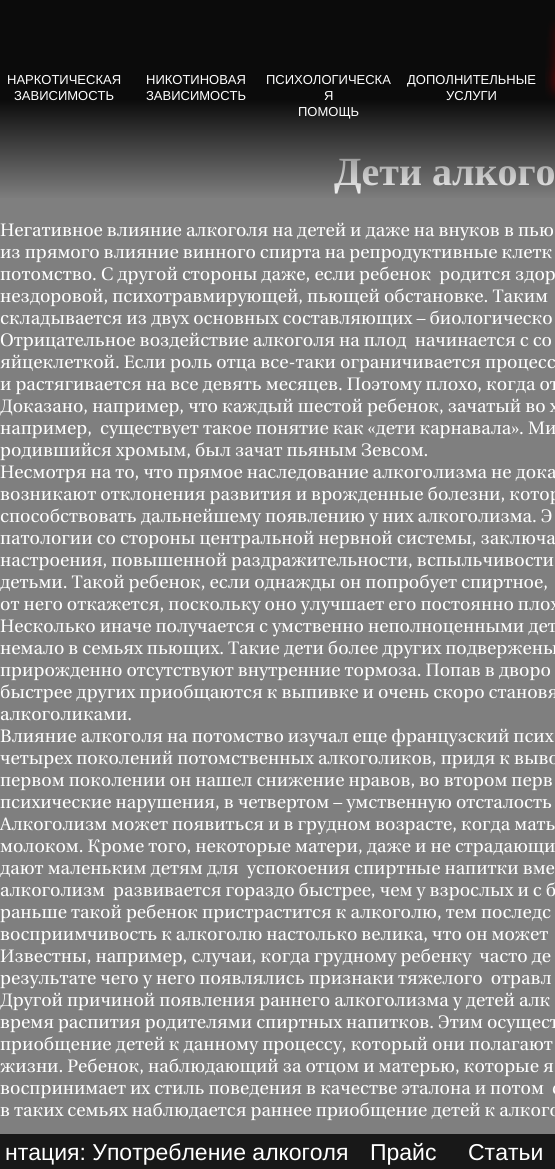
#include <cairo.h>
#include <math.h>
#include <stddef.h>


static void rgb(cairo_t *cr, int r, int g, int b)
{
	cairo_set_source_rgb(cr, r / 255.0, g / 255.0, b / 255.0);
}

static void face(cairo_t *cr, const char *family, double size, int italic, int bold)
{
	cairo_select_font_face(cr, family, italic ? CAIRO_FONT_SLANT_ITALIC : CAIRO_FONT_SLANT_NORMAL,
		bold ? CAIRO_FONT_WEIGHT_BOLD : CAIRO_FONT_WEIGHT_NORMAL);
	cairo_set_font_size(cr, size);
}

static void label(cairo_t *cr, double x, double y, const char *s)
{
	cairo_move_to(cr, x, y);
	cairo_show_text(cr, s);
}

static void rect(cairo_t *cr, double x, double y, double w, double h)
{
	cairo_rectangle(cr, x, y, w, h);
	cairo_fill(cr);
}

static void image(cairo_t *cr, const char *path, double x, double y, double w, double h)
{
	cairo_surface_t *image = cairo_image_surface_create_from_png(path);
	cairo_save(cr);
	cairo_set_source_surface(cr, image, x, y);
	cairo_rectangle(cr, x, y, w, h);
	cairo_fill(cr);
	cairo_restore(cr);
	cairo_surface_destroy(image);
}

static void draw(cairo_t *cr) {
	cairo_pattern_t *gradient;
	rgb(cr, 127, 127, 127);
	cairo_paint(cr);
	face(cr, "Liberation Serif", 40, 0, 1);
	rgb(cr, 255, 255, 255);
	label(cr, 334, 185, "Дети алкого");
	gradient = cairo_pattern_create_linear(278, 0, 278, 200);
	cairo_pattern_add_color_stop_rgba(gradient, 0.5, 0, 0, 0, 0.91);
	cairo_pattern_add_color_stop_rgba(gradient, 1, 0, 0, 0, 0);
	cairo_set_source(cr, gradient);
	cairo_pattern_destroy(gradient);
	rect(cr, 0, 0, 555, 198);
	face(cr, "Liberation Sans", 13, 0, 0);
	rgb(cr, 255, 255, 255);
	label(cr, 7, 84, "НАРКОТИЧЕСКАЯ");
	label(cr, 14, 100, "ЗАВИСИМОСТЬ");
	label(cr, 146, 84, "НИКОТИНОВАЯ");
	label(cr, 146, 100, "ЗАВИСИМОСТЬ");
	label(cr, 266, 84, "ПСИХОЛОГИЧЕСКА");
	label(cr, 324, 100, "Я");
	label(cr, 298, 116, "ПОМОЩЬ");
	label(cr, 407, 84, "ДОПОЛНИТЕЛЬНЫЕ");
	label(cr, 446, 100, "УСЛУГИ");
	image(cr, "image0.png", 545, 20, 10, 80);
	face(cr, "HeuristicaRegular", 18, 0, 0);
	label(cr, 0, 236, "Негативное влияние алкоголя на детей и даже на внуков в пью");
	label(cr, 0, 258, "из прямого влияние винного спирта на репродуктивные клетк");
	label(cr, 0, 280, "потомство. С другой стороны даже, если ребенок  родится здор");
	label(cr, 0, 302, "нездоровой, психотравмирующей, пьющей обстановке. Таким");
	label(cr, 0, 324, "складывается из двух основных составляющих – биологическо");
	label(cr, 0, 346, "Отрицательное воздействие алкоголя на плод  начинается с со");
	label(cr, 0, 368, "яйцеклеткой. Если роль отца все-таки ограничивается процесс");
	label(cr, 0, 390, "и растягивается на все девять месяцев. Поэтому плохо, когда от");
	label(cr, 0, 412, "Доказано, например, что каждый шестой ребенок, зачатый во х");
	label(cr, 0, 434, "например,  существует такое понятие как «дети карнавала». Ми");
	label(cr, 0, 456, "родившийся хромым, был зачат пьяным Зевсом.");
	label(cr, 0, 478, "Несмотря на то, что прямое наследование алкоголизма не дока");
	label(cr, 0, 500, "возникают отклонения развития и врожденные болезни, котор");
	label(cr, 0, 522, "способствовать дальнейшему появлению у них алкоголизма. Э");
	label(cr, 0, 544, "патологии со стороны центральной нервной системы, заключа");
	label(cr, 0, 566, "настроения, повышенной раздражительности, вспыльчивости");
	label(cr, 0, 588, "детьми. Такой ребенок, если однажды он попробует спиртное,");
	label(cr, 0, 610, "от него откажется, поскольку оно улучшает его постоянно плох");
	label(cr, 0, 632, "Несколько иначе получается с умственно неполноценными дет");
	label(cr, 0, 654, "немало в семьях пьющих. Такие дети более других подвержены");
	label(cr, 0, 676, "прирожденно отсутствуют внутренние тормоза. Попав в дворо");
	label(cr, 0, 698, "быстрее других приобщаются к выпивке и очень скоро становя");
	label(cr, 0, 720, "алкоголиками.");
	label(cr, 0, 742, "Влияние алкоголя на потомство изучал еще французский псих");
	label(cr, 0, 764, "четырех поколений потомственных алкоголиков, придя к выво");
	label(cr, 0, 786, "первом поколении он нашел снижение нравов, во втором перв");
	label(cr, 0, 808, "психические нарушения, в четвертом – умственную отсталость");
	label(cr, 0, 830, "Алкоголизм может появиться и в грудном возрасте, когда мать");
	label(cr, 0, 852, "молоком. Кроме того, некоторые матери, даже и не страдающи");
	label(cr, 0, 874, "дают маленьким детям для  успокоения спиртные напитки вме");
	label(cr, 0, 896, "алкоголизм  развивается гораздо быстрее, чем у взрослых и с б");
	label(cr, 0, 918, "раньше такой ребенок пристрастится к алкоголю, тем последс");
	label(cr, 0, 940, "восприимчивость к алкоголю настолько велика, что он может");
	label(cr, 0, 962, "Известны, например, случаи, когда грудному ребенку  часто де");
	label(cr, 0, 984, "результате чего у него появлялись признаки тяжелого  отравл");
	label(cr, 0, 1006, "Другой причиной появления раннего алкоголизма у детей алк");
	label(cr, 0, 1028, "время распития родителями спиртных напитков. Этим осущест");
	label(cr, 0, 1050, "приобщение детей к данному процессу, который они полагают");
	label(cr, 0, 1072, "жизни. Ребенок, наблюдающий за отцом и матерью, которые я");
	label(cr, 0, 1094, "воспринимает их стиль поведения в качестве эталона и потом  с");
	label(cr, 0, 1116, "в таких семьях наблюдается раннее приобщение детей к алкого");
	cairo_set_source_rgba(cr, 0, 0, 0, 0.81);
	rect(cr, 0, 1134, 555, 35);
	face(cr, "Liberation Sans", 23, 0, 0);
	rgb(cr, 255, 255, 255);
	label(cr, 5, 1160, "нтация: Употребление алкоголя");
	label(cr, 370, 1160, "Прайс");
	label(cr, 468, 1160, "Статьи");
}

int main(void) {
	cairo_surface_t *surface = cairo_image_surface_create(CAIRO_FORMAT_RGB24, 555, 1169);
	cairo_t *cr = cairo_create(surface);
	cairo_font_options_t *options = cairo_font_options_create();
	cairo_font_options_set_hint_metrics(options, CAIRO_HINT_METRICS_OFF);
	cairo_font_options_set_hint_style(options, CAIRO_HINT_STYLE_NONE);
	cairo_set_font_options(cr, options);
	cairo_set_miter_limit(cr, 4);
	draw(cr);
	cairo_surface_write_to_png(surface, "render.png");
	cairo_font_options_destroy(options);
	cairo_destroy(cr);
	cairo_surface_destroy(surface);
	return 0;
}
